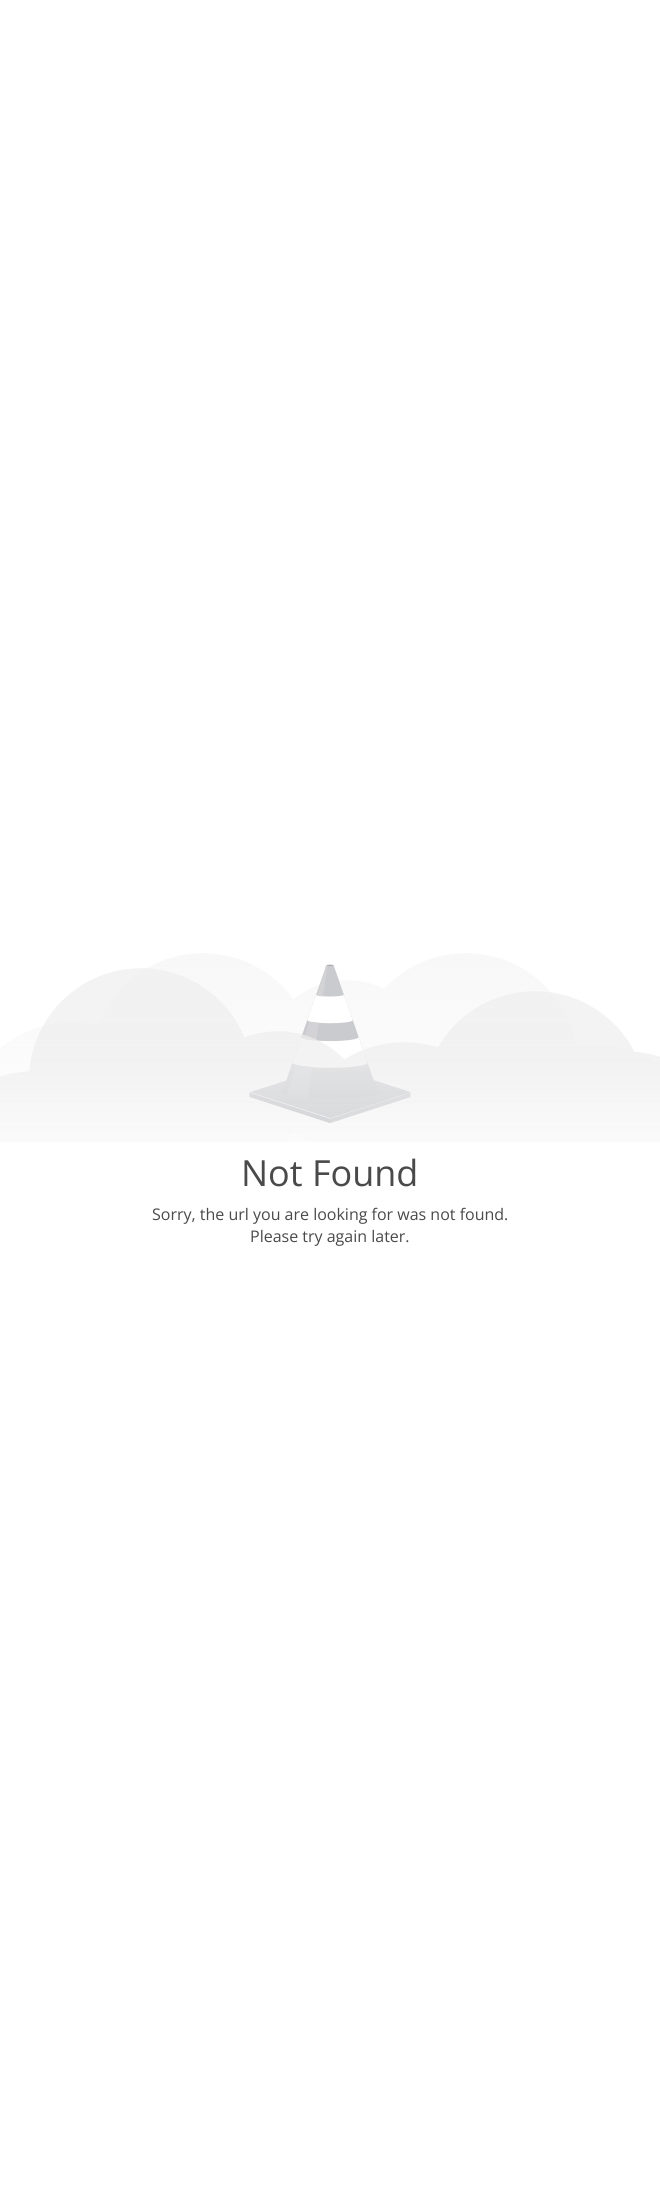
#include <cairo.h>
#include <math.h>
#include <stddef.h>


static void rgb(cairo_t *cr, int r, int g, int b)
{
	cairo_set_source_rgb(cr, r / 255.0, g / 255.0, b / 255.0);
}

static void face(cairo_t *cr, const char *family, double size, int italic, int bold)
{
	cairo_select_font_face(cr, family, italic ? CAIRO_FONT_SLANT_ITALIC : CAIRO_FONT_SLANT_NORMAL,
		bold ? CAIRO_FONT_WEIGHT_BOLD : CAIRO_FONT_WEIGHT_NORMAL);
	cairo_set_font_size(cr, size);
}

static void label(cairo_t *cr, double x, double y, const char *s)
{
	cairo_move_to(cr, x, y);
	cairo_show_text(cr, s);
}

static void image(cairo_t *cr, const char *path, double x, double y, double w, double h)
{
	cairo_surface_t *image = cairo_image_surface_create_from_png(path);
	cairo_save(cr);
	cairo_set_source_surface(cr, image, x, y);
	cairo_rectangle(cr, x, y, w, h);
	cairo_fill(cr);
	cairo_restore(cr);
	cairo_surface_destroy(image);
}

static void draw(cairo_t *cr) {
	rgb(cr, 255, 255, 255);
	cairo_paint(cr);
	image(cr, "image0.png", 0, 953, 660, 189);
	face(cr, "Open Sans", 36, 0, 0);
	rgb(cr, 74, 74, 74);
	label(cr, 241, 1186, "Not Found");
	face(cr, "Open Sans", 16, 0, 0);
	label(cr, 152, 1220, "Sorry, the url you are looking for was not found.");
	label(cr, 250, 1242, "Please try again later.");
}

int main(void) {
	cairo_surface_t *surface = cairo_image_surface_create(CAIRO_FORMAT_RGB24, 660, 2200);
	cairo_t *cr = cairo_create(surface);
	cairo_font_options_t *options = cairo_font_options_create();
	cairo_font_options_set_hint_metrics(options, CAIRO_HINT_METRICS_OFF);
	cairo_font_options_set_hint_style(options, CAIRO_HINT_STYLE_NONE);
	cairo_set_font_options(cr, options);
	cairo_set_miter_limit(cr, 4);
	draw(cr);
	cairo_surface_write_to_png(surface, "render.png");
	cairo_font_options_destroy(options);
	cairo_destroy(cr);
	cairo_surface_destroy(surface);
	return 0;
}
